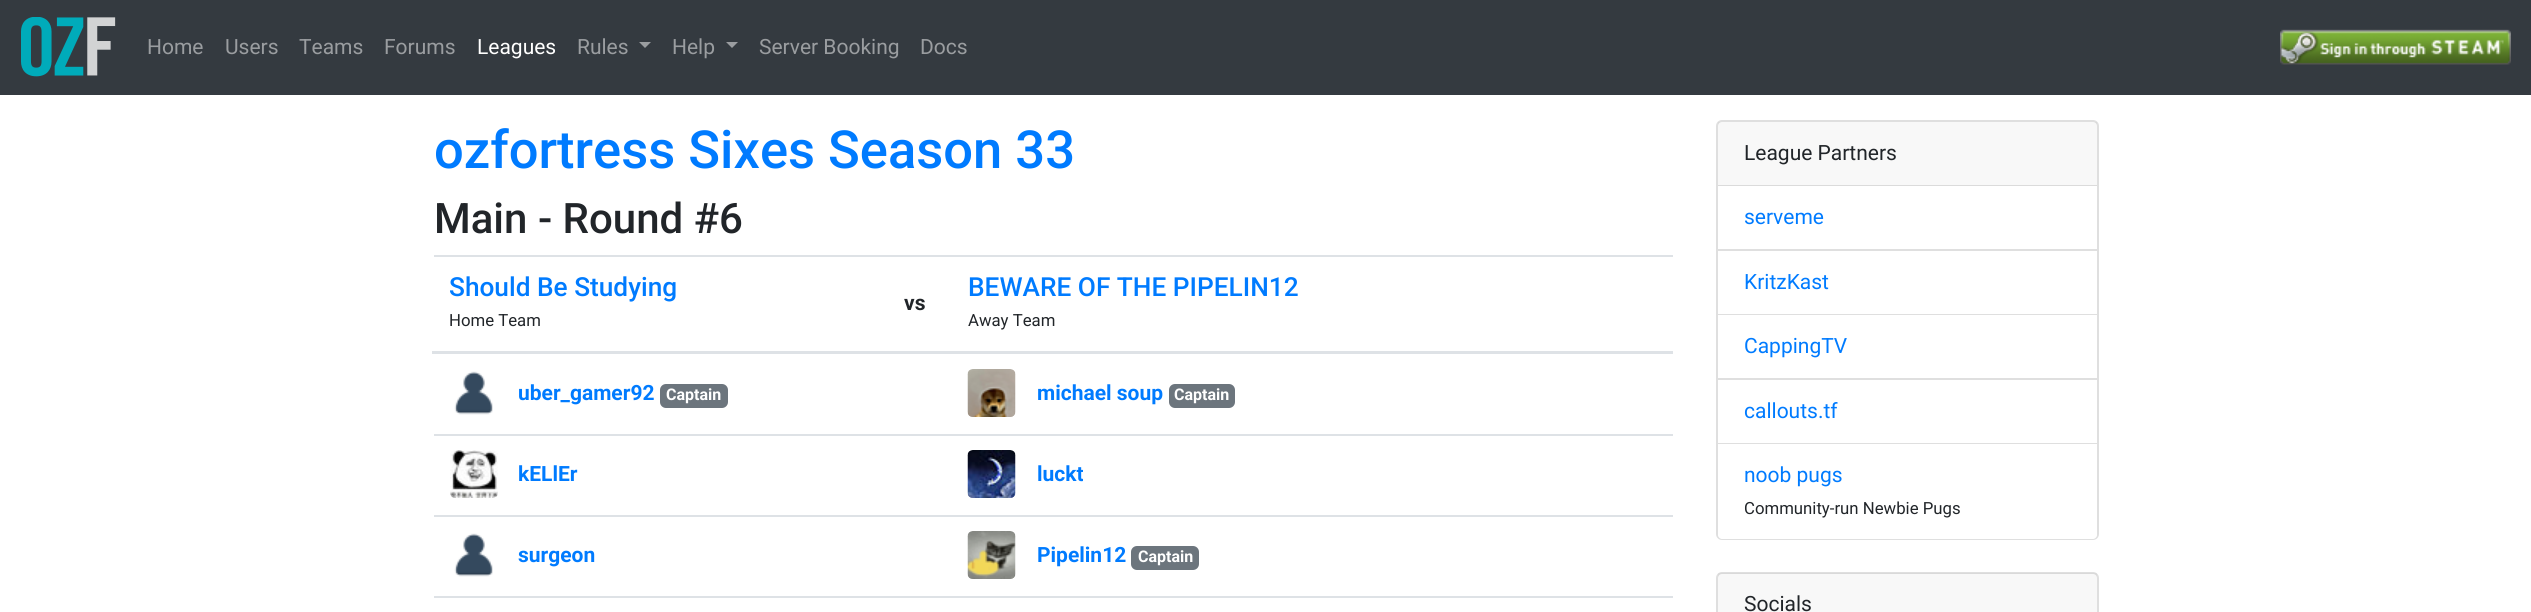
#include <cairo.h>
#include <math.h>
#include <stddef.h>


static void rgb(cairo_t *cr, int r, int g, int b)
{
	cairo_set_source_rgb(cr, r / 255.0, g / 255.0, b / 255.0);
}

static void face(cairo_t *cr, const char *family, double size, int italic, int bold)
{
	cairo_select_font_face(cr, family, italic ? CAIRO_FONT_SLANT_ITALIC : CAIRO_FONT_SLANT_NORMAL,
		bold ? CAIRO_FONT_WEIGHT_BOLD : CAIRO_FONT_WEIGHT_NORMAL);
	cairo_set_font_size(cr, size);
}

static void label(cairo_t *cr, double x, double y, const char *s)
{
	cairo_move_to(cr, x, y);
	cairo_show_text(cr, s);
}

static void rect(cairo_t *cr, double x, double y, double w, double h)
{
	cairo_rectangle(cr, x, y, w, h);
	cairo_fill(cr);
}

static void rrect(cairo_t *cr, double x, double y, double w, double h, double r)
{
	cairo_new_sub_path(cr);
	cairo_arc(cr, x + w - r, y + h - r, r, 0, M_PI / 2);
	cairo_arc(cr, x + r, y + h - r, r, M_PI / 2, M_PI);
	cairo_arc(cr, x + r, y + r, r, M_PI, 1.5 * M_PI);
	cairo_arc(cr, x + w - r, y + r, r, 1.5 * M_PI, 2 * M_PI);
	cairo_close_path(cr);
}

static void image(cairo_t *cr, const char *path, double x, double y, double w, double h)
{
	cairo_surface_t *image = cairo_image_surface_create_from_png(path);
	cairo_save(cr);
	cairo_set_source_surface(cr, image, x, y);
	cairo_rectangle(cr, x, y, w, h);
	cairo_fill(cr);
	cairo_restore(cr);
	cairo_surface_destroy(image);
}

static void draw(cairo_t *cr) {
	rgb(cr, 255, 255, 255);
	cairo_paint(cr);
	rgb(cr, 52, 58, 64);
	rect(cr, 0, 0, 2531, 95);
	image(cr, "image0.png", 21, 17, 95, 60);
	face(cr, "Roboto", 21, 0, 0);
	rgb(cr, 154, 157, 160);
	label(cr, 147, 54, "Home");
	label(cr, 225, 54, "Users");
	label(cr, 299, 54, "Teams");
	label(cr, 384, 54, "Forums");
	rgb(cr, 255, 255, 255);
	label(cr, 477, 54, "Leagues");
	rgb(cr, 154, 157, 160);
	label(cr, 577, 54, "Rules");
	cairo_new_path(cr);
	cairo_move_to(cr, 639, 42);
	cairo_line_to(cr, 651, 42);
	cairo_line_to(cr, 645, 48);
	cairo_close_path(cr);
	cairo_fill(cr);
	label(cr, 672, 54, "Help");
	cairo_new_path(cr);
	cairo_move_to(cr, 726, 42);
	cairo_line_to(cr, 738, 42);
	cairo_line_to(cr, 732, 48);
	cairo_close_path(cr);
	cairo_fill(cr);
	label(cr, 759, 54, "Server Booking");
	label(cr, 920, 54, "Docs");
	image(cr, "image1.png", 2280, 29, 231, 36);
	face(cr, "Roboto Medium", 52.5, 0, 0);
	rgb(cr, 0, 123, 255);
	label(cr, 434, 168, "ozfortress Sixes Season 33");
	face(cr, "Roboto Medium", 42, 0, 0);
	rgb(cr, 33, 37, 41);
	label(cr, 434, 233, "Main - Round #6");
	face(cr, "Roboto Medium", 26.25, 0, 0);
	rgb(cr, 0, 123, 255);
	label(cr, 449, 296, "Should Be Studying");
	face(cr, "Roboto", 16.75, 0, 0);
	rgb(cr, 33, 37, 41);
	label(cr, 449, 326, "Home Team");
	face(cr, "Roboto", 21, 0, 1);
	label(cr, 904, 310, "vs");
	rgb(cr, 222, 226, 230);
	rect(cr, 434, 255, 1239, 2);
	rect(cr, 432, 351, 1241, 3);
	face(cr, "Roboto Medium", 26.25, 0, 0);
	rgb(cr, 0, 123, 255);
	label(cr, 968, 296, "BEWARE OF THE PIPELIN12");
	face(cr, "Roboto", 16.75, 0, 0);
	rgb(cr, 33, 37, 41);
	label(cr, 968, 326, "Away Team");
	image(cr, "image2.png", 454, 371, 39, 44);
	face(cr, "Roboto", 21, 0, 1);
	rgb(cr, 0, 123, 255);
	label(cr, 518, 400, "uber_gamer92");
	rgb(cr, 108, 117, 125);
	rrect(cr, 660, 384, 68, 24, 6);
	cairo_fill(cr);
	face(cr, "Roboto", 16, 0, 1);
	rgb(cr, 255, 255, 255);
	label(cr, 666, 400, "Captain");
	image(cr, "image3.png", 967, 369, 49, 48);
	face(cr, "Roboto", 21, 0, 1);
	rgb(cr, 0, 123, 255);
	label(cr, 1037, 400, "michael soup");
	rgb(cr, 108, 117, 125);
	rrect(cr, 1169, 384, 66, 24, 6);
	cairo_fill(cr);
	face(cr, "Roboto", 16, 0, 1);
	rgb(cr, 255, 255, 255);
	label(cr, 1174, 400, "Captain");
	image(cr, "image4.png", 450, 450, 48, 48);
	face(cr, "Roboto", 21, 0, 1);
	rgb(cr, 0, 123, 255);
	label(cr, 518, 481, "kELlEr");
	rgb(cr, 222, 226, 230);
	rect(cr, 434, 434, 1239, 2);
	image(cr, "image5.png", 967, 450, 49, 48);
	rgb(cr, 0, 123, 255);
	label(cr, 1037, 481, "luckt");
	image(cr, "image2.png", 454, 533, 39, 44);
	label(cr, 518, 562, "surgeon");
	rgb(cr, 222, 226, 230);
	rect(cr, 434, 515, 1239, 2);
	image(cr, "image6.png", 967, 531, 49, 48);
	rgb(cr, 0, 123, 255);
	label(cr, 1037, 562, "Pipelin12");
	rgb(cr, 108, 117, 125);
	rrect(cr, 1131, 546, 68, 24, 6);
	cairo_fill(cr);
	face(cr, "Roboto", 16, 0, 1);
	rgb(cr, 255, 255, 255);
	label(cr, 1138, 562, "Captain");
	rgb(cr, 222, 226, 230);
	rect(cr, 434, 596, 1239, 2);
	rrect(cr, 1717, 121, 381, 418, 5);
	rgb(cr, 223, 223, 223);
	cairo_stroke(cr);
	cairo_set_source_rgba(cr, 0, 0, 0, 0.03);
	rect(cr, 1718, 122, 379, 64);
	cairo_set_source_rgba(cr, 0, 0, 0, 0.12);
	rect(cr, 1718, 185, 379, 1);
	face(cr, "Roboto", 21, 0, 0);
	rgb(cr, 33, 37, 41);
	label(cr, 1744, 160, "League Partners");
	rgb(cr, 223, 223, 223);
	rect(cr, 1718, 249, 379, 2);
	rgb(cr, 0, 123, 255);
	label(cr, 1744, 224, "serveme");
	rgb(cr, 223, 223, 223);
	rect(cr, 1718, 314, 379, 1);
	rgb(cr, 0, 123, 255);
	label(cr, 1744, 289, "KritzKast");
	rgb(cr, 223, 223, 223);
	rect(cr, 1718, 378, 379, 2);
	rgb(cr, 0, 123, 255);
	label(cr, 1744, 353, "CappingTV");
	rgb(cr, 223, 223, 223);
	rect(cr, 1718, 443, 379, 1);
	rgb(cr, 0, 123, 255);
	label(cr, 1744, 418, "callouts.tf");
	rgb(cr, 255, 255, 255);
	cairo_new_path(cr);
	cairo_move_to(cr, 1718, 444);
	cairo_line_to(cr, 2097, 444);
	cairo_line_to(cr, 2097, 535);
	cairo_curve_to(cr, 2097, 537, 2095, 539, 2093, 539);
	cairo_line_to(cr, 1722, 539);
	cairo_curve_to(cr, 1720, 539, 1718, 537, 1718, 535);
	cairo_close_path(cr);
	cairo_fill(cr);
	rgb(cr, 0, 123, 255);
	label(cr, 1744, 482, "noob pugs");
	face(cr, "Roboto", 16.75, 0, 0);
	rgb(cr, 33, 37, 41);
	label(cr, 1744, 514, "Community-run Newbie Pugs");
	rrect(cr, 1717, 573, 381, 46, 5);
	rgb(cr, 223, 223, 223);
	cairo_stroke(cr);
	cairo_set_source_rgba(cr, 0, 0, 0, 0.03);
	rect(cr, 1718, 573, 379, 39);
	face(cr, "Roboto", 21, 0, 0);
	rgb(cr, 33, 37, 41);
	label(cr, 1744, 611, "Socials");
}

int main(void) {
	cairo_surface_t *surface = cairo_image_surface_create(CAIRO_FORMAT_RGB24, 2531, 612);
	cairo_t *cr = cairo_create(surface);
	cairo_font_options_t *options = cairo_font_options_create();
	cairo_font_options_set_hint_metrics(options, CAIRO_HINT_METRICS_OFF);
	cairo_font_options_set_hint_style(options, CAIRO_HINT_STYLE_NONE);
	cairo_set_font_options(cr, options);
	cairo_set_miter_limit(cr, 4);
	draw(cr);
	cairo_surface_write_to_png(surface, "render.png");
	cairo_font_options_destroy(options);
	cairo_destroy(cr);
	cairo_surface_destroy(surface);
	return 0;
}
